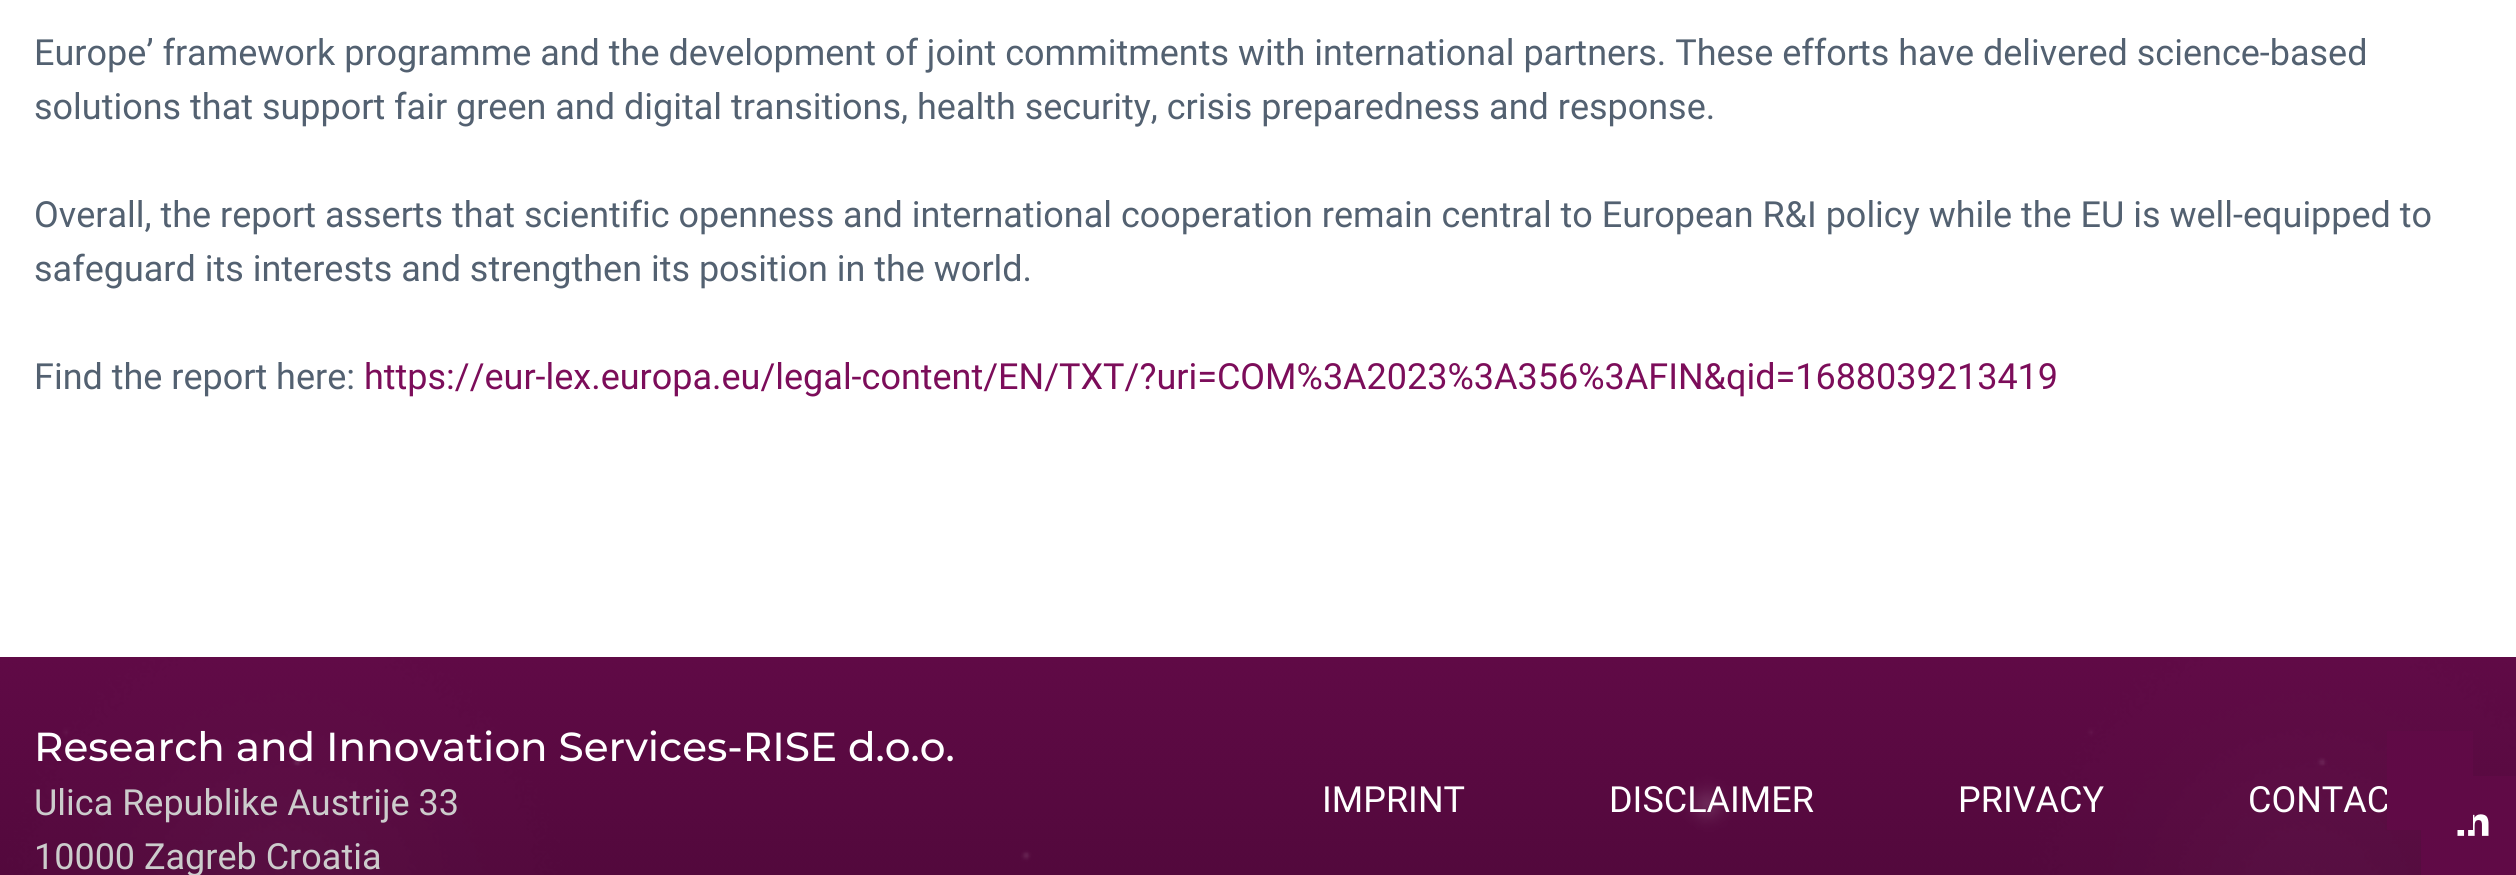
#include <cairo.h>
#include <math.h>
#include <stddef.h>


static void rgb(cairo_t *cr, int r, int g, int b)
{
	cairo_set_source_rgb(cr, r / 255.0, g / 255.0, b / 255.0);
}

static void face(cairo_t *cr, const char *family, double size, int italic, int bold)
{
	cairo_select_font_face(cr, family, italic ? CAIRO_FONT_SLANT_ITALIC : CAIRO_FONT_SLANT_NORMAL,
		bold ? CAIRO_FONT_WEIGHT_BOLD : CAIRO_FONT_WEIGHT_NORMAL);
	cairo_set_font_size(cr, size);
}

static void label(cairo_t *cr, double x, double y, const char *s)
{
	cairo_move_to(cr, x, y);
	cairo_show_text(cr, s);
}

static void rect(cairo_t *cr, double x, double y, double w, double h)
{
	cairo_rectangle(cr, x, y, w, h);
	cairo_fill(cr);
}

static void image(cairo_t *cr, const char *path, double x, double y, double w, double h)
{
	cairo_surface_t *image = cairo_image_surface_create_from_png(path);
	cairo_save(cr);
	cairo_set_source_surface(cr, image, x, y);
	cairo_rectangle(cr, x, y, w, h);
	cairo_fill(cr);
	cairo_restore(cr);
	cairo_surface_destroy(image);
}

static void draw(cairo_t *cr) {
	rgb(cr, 255, 255, 255);
	cairo_paint(cr);
	face(cr, "Roboto", 36, 0, 0);
	rgb(cr, 83, 97, 113);
	label(cr, 34, 65, "Europe’ framework programme and the development of joint commitments with international partners. These efforts have delivered science-based");
	label(cr, 34, 119, "solutions that support fair green and digital transitions, health security, crisis preparedness and response.");
	label(cr, 34, 227, "Overall, the report asserts that scientific openness and international cooperation remain central to European R&I policy while the EU is well-equipped to");
	label(cr, 34, 281, "safeguard its interests and strengthen its position in the world.");
	label(cr, 34, 389, "Find the report here:");
	rgb(cr, 124, 13, 90);
	label(cr, 364, 389, "https://eur-lex.europa.eu/legal-content/EN/TXT/?uri=COM%3A2023%3A356%3AFIN&qid=1688039213419");
	image(cr, "image0.png", 0, 657, 2516, 218);
	face(cr, "Montserrat Medium", 40.5, 0, 0);
	rgb(cr, 255, 255, 255);
	label(cr, 34, 761, "Research and Innovation Services-RISE d.o.o.");
	face(cr, "Roboto", 36, 0, 0);
	rgb(cr, 204, 204, 204);
	label(cr, 34, 815, "Ulica Republike Austrije 33");
	label(cr, 34, 869, "10000 Zagreb Croatia");
	rgb(cr, 255, 255, 255);
	label(cr, 1322, 812, "IMPRINT");
	label(cr, 1609, 812, "DISCLAIMER");
	label(cr, 1958, 812, "PRIVACY");
	label(cr, 2248, 812, "CONTAC");
	rgb(cr, 96, 10, 70);
	rect(cr, 2421, 776, 95, 99);
	image(cr, "image1.png", 2457, 814, 32, 22);
	rect(cr, 2387, 731, 86, 99);
}

int main(void) {
	cairo_surface_t *surface = cairo_image_surface_create(CAIRO_FORMAT_RGB24, 2516, 875);
	cairo_t *cr = cairo_create(surface);
	cairo_font_options_t *options = cairo_font_options_create();
	cairo_font_options_set_hint_metrics(options, CAIRO_HINT_METRICS_OFF);
	cairo_font_options_set_hint_style(options, CAIRO_HINT_STYLE_NONE);
	cairo_set_font_options(cr, options);
	cairo_set_miter_limit(cr, 4);
	draw(cr);
	cairo_surface_write_to_png(surface, "render.png");
	cairo_font_options_destroy(options);
	cairo_destroy(cr);
	cairo_surface_destroy(surface);
	return 0;
}
